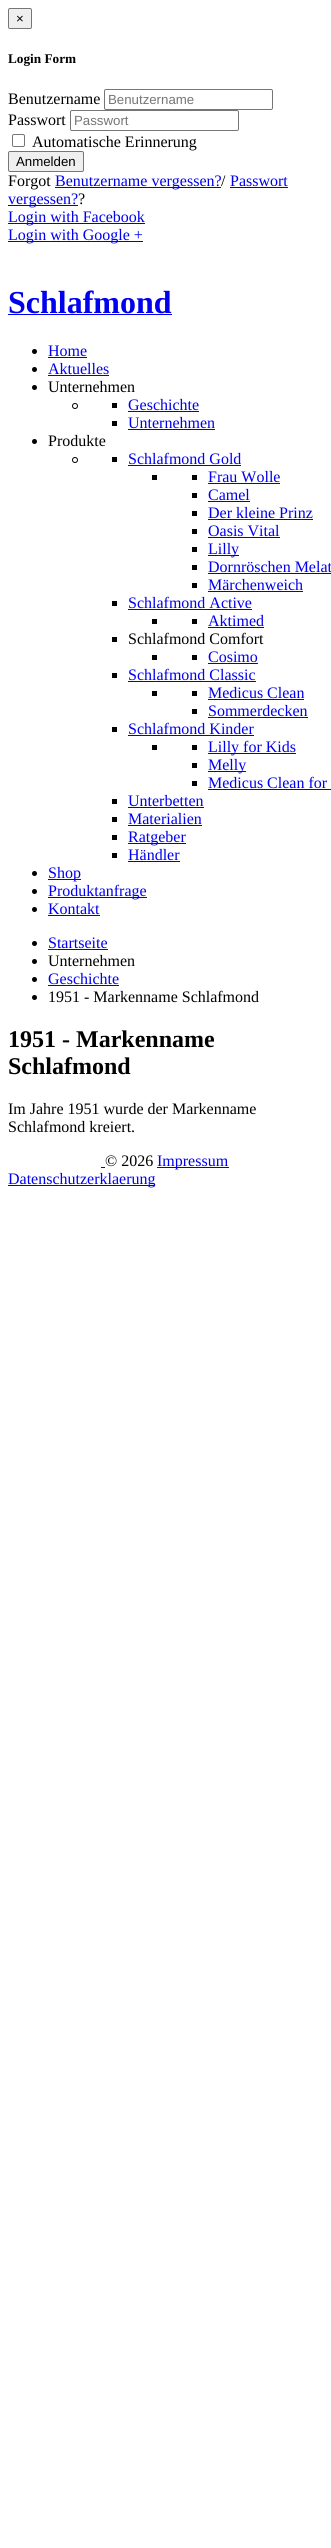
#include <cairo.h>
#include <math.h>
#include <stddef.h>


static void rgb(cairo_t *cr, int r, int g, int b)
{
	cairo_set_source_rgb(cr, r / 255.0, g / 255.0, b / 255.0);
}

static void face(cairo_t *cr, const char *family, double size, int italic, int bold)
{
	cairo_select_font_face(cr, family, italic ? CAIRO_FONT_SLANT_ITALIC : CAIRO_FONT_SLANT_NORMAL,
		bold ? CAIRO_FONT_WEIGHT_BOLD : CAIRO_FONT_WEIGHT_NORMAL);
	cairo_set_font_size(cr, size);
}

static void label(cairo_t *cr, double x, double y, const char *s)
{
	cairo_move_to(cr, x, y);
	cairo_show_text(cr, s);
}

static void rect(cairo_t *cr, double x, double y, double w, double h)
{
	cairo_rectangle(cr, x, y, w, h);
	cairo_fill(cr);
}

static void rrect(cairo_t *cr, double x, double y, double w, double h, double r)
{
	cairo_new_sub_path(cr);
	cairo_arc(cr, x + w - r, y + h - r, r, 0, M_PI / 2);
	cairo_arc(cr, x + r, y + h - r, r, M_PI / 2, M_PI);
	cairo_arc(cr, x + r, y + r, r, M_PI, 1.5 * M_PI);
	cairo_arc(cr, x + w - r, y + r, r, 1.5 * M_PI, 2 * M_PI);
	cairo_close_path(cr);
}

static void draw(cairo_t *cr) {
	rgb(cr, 255, 255, 255);
	cairo_paint(cr);
	rgb(cr, 239, 239, 239);
	rrect(cr, 8.5, 8.5, 23, 20, 1.5);
	cairo_fill_preserve(cr);
	rgb(cr, 118, 118, 118);
	cairo_set_line_width(cr, 1);
	cairo_stroke(cr);
	face(cr, "Liberation Sans", 13.25, 0, 0);
	rgb(cr, 0, 0, 0);
	label(cr, 16, 23, "×");
	face(cr, "Liberation Serif", 13.25, 0, 1);
	label(cr, 8, 63, "Login Form");
	face(cr, "Liberation Serif", 16, 0, 0);
	label(cr, 8, 104, "Benutzername");
	rrect(cr, 104.5, 89.5, 168, 20, 1.5);
	rgb(cr, 118, 118, 118);
	cairo_stroke(cr);
	face(cr, "Liberation Sans", 13.25, 0, 0);
	rgb(cr, 117, 117, 117);
	label(cr, 108, 104, "Benutzername");
	face(cr, "Liberation Serif", 16, 0, 0);
	rgb(cr, 0, 0, 0);
	label(cr, 8, 125, "Passwort");
	rrect(cr, 70.5, 110.5, 168, 20, 1.5);
	rgb(cr, 118, 118, 118);
	cairo_stroke(cr);
	face(cr, "Liberation Sans", 13.25, 0, 0);
	rgb(cr, 117, 117, 117);
	label(cr, 74, 125, "Passwort");
	rrect(cr, 12.5, 134.5, 12, 12, 1.5);
	rgb(cr, 118, 118, 118);
	cairo_stroke(cr);
	face(cr, "Liberation Serif", 16, 0, 0);
	rgb(cr, 0, 0, 0);
	label(cr, 32, 147, "Automatische Erinnerung");
	rgb(cr, 239, 239, 239);
	rrect(cr, 8.5, 151.5, 75, 20, 1.5);
	cairo_fill_preserve(cr);
	rgb(cr, 118, 118, 118);
	cairo_stroke(cr);
	face(cr, "Liberation Sans", 13.25, 0, 0);
	rgb(cr, 0, 0, 0);
	label(cr, 16, 166, "Anmelden");
	face(cr, "Liberation Serif", 16, 0, 0);
	label(cr, 8, 186, "Forgot");
	rgb(cr, 0, 0, 238);
	rect(cr, 55, 187, 166, 1);
	label(cr, 55, 186, "Benutzername vergessen?");
	rgb(cr, 0, 0, 0);
	label(cr, 221, 186, "/");
	rgb(cr, 0, 0, 238);
	label(cr, 230, 186, "Passwort");
	rect(cr, 230, 187, 58, 1);
	rect(cr, 8, 205, 70, 1);
	label(cr, 8, 204, "vergessen?");
	rgb(cr, 0, 0, 0);
	label(cr, 78, 204, "?");
	rgb(cr, 0, 0, 238);
	rect(cr, 8, 223, 137, 1);
	label(cr, 8, 222, "Login with Facebook");
	rect(cr, 8, 241, 135, 1);
	label(cr, 8, 240, "Login with Google +");
	face(cr, "Liberation Serif", 32, 0, 1);
	label(cr, 8, 313, "Schlafmond");
	rect(cr, 8, 314, 164, 1);
	rgb(cr, 0, 0, 0);
	cairo_new_path(cr);
	cairo_arc(cr, 34.5, 351.5, 2.5, 0, 2 * M_PI);
	cairo_fill(cr);
	face(cr, "Liberation Serif", 16, 0, 0);
	rgb(cr, 0, 0, 238);
	label(cr, 48, 356, "Home");
	rect(cr, 48, 357, 39, 1);
	rgb(cr, 0, 0, 0);
	cairo_new_path(cr);
	cairo_arc(cr, 34.5, 369.5, 2.5, 0, 2 * M_PI);
	cairo_fill(cr);
	rgb(cr, 0, 0, 238);
	label(cr, 48, 374, "Aktuelles");
	rect(cr, 48, 375, 61, 1);
	rgb(cr, 0, 0, 0);
	cairo_new_path(cr);
	cairo_arc(cr, 34.5, 387.5, 2.5, 0, 2 * M_PI);
	cairo_fill(cr);
	label(cr, 48, 392, "Unternehmen");
	cairo_new_path(cr);
	cairo_arc(cr, 75, 406, 2.5, 0, 2 * M_PI);
	cairo_stroke(cr);
	rect(cr, 112, 403, 5, 5);
	rgb(cr, 0, 0, 238);
	label(cr, 128, 410, "Geschichte");
	rect(cr, 128, 411, 71, 1);
	rgb(cr, 0, 0, 0);
	rect(cr, 112, 421, 5, 5);
	rgb(cr, 0, 0, 238);
	label(cr, 128, 428, "Unternehmen");
	rect(cr, 128, 429, 87, 1);
	rgb(cr, 0, 0, 0);
	cairo_new_path(cr);
	cairo_arc(cr, 34.5, 441.5, 2.5, 0, 2 * M_PI);
	cairo_fill(cr);
	label(cr, 48, 446, "Produkte");
	cairo_new_path(cr);
	cairo_arc(cr, 75, 460, 2.5, 0, 2 * M_PI);
	cairo_stroke(cr);
	rect(cr, 112, 457, 5, 5);
	rgb(cr, 0, 0, 238);
	label(cr, 128, 464, "Schlafmond Gold");
	rect(cr, 128, 465, 113, 1);
	rgb(cr, 0, 0, 0);
	rect(cr, 152, 475, 5, 5);
	rect(cr, 192, 475, 5, 5);
	rgb(cr, 0, 0, 238);
	label(cr, 208, 482, "Frau Wolle");
	rect(cr, 208, 483, 72, 1);
	rgb(cr, 0, 0, 0);
	rect(cr, 192, 493, 5, 5);
	rgb(cr, 0, 0, 238);
	label(cr, 208, 500, "Camel");
	rect(cr, 208, 501, 42, 1);
	rgb(cr, 0, 0, 0);
	rect(cr, 192, 511, 5, 5);
	rgb(cr, 0, 0, 238);
	label(cr, 208, 518, "Der kleine Prinz");
	rect(cr, 208, 519, 105, 1);
	rgb(cr, 0, 0, 0);
	rect(cr, 192, 529, 5, 5);
	rgb(cr, 0, 0, 238);
	label(cr, 208, 536, "Oasis Vital");
	rect(cr, 208, 537, 72, 1);
	rgb(cr, 0, 0, 0);
	rect(cr, 192, 547, 5, 5);
	rgb(cr, 0, 0, 238);
	rect(cr, 208, 555, 31, 1);
	label(cr, 208, 554, "Lilly");
	rgb(cr, 0, 0, 0);
	rect(cr, 192, 565, 5, 5);
	rgb(cr, 0, 0, 238);
	label(cr, 208, 572, "Dornröschen Melat");
	rect(cr, 208, 573, 123, 1);
	rgb(cr, 0, 0, 0);
	rect(cr, 192, 583, 5, 5);
	rgb(cr, 0, 0, 238);
	label(cr, 208, 590, "Märchenweich");
	rect(cr, 208, 591, 95, 1);
	rgb(cr, 0, 0, 0);
	rect(cr, 112, 601, 5, 5);
	rgb(cr, 0, 0, 238);
	label(cr, 128, 608, "Schlafmond Active");
	rect(cr, 128, 609, 124, 1);
	rgb(cr, 0, 0, 0);
	rect(cr, 152, 619, 5, 5);
	rect(cr, 192, 619, 5, 5);
	rgb(cr, 0, 0, 238);
	label(cr, 208, 626, "Aktimed");
	rect(cr, 208, 627, 56, 1);
	rgb(cr, 0, 0, 0);
	rect(cr, 112, 637, 5, 5);
	label(cr, 128, 644, "Schlafmond Comfort");
	rect(cr, 152, 655, 5, 5);
	rect(cr, 192, 655, 5, 5);
	rgb(cr, 0, 0, 238);
	label(cr, 208, 662, "Cosimo");
	rect(cr, 208, 663, 50, 1);
	rgb(cr, 0, 0, 0);
	rect(cr, 112, 673, 5, 5);
	rgb(cr, 0, 0, 238);
	label(cr, 128, 680, "Schlafmond Classic");
	rect(cr, 128, 681, 128, 1);
	rgb(cr, 0, 0, 0);
	rect(cr, 152, 691, 5, 5);
	rect(cr, 192, 691, 5, 5);
	rgb(cr, 0, 0, 238);
	label(cr, 208, 698, "Medicus Clean");
	rect(cr, 208, 699, 96, 1);
	rgb(cr, 0, 0, 0);
	rect(cr, 192, 709, 5, 5);
	rgb(cr, 0, 0, 238);
	label(cr, 208, 716, "Sommerdecken");
	rect(cr, 208, 717, 100, 1);
	rgb(cr, 0, 0, 0);
	rect(cr, 112, 727, 5, 5);
	rgb(cr, 0, 0, 238);
	label(cr, 128, 734, "Schlafmond Kinder");
	rect(cr, 128, 735, 126, 1);
	rgb(cr, 0, 0, 0);
	rect(cr, 152, 745, 5, 5);
	rect(cr, 192, 745, 5, 5);
	rgb(cr, 0, 0, 238);
	rect(cr, 208, 753, 88, 1);
	label(cr, 208, 752, "Lilly for Kids");
	rgb(cr, 0, 0, 0);
	rect(cr, 192, 763, 5, 5);
	rgb(cr, 0, 0, 238);
	rect(cr, 208, 771, 38, 1);
	label(cr, 208, 770, "Melly");
	rgb(cr, 0, 0, 0);
	rect(cr, 192, 781, 5, 5);
	rgb(cr, 0, 0, 238);
	label(cr, 208, 788, "Medicus Clean for");
	rect(cr, 208, 789, 123, 1);
	rgb(cr, 0, 0, 0);
	rect(cr, 112, 799, 5, 5);
	rgb(cr, 0, 0, 238);
	label(cr, 128, 806, "Unterbetten");
	rect(cr, 128, 807, 76, 1);
	rgb(cr, 0, 0, 0);
	rect(cr, 112, 817, 5, 5);
	rgb(cr, 0, 0, 238);
	label(cr, 128, 824, "Materialien");
	rect(cr, 128, 825, 74, 1);
	rgb(cr, 0, 0, 0);
	rect(cr, 112, 835, 5, 5);
	rgb(cr, 0, 0, 238);
	rect(cr, 128, 843, 58, 1);
	label(cr, 128, 842, "Ratgeber");
	rgb(cr, 0, 0, 0);
	rect(cr, 112, 853, 5, 5);
	rgb(cr, 0, 0, 238);
	label(cr, 128, 860, "Händler");
	rect(cr, 128, 861, 52, 1);
	rgb(cr, 0, 0, 0);
	cairo_new_path(cr);
	cairo_arc(cr, 34.5, 873.5, 2.5, 0, 2 * M_PI);
	cairo_fill(cr);
	rgb(cr, 0, 0, 238);
	rect(cr, 48, 879, 33, 1);
	label(cr, 48, 878, "Shop");
	rgb(cr, 0, 0, 0);
	cairo_new_path(cr);
	cairo_arc(cr, 34.5, 891.5, 2.5, 0, 2 * M_PI);
	cairo_fill(cr);
	rgb(cr, 0, 0, 238);
	rect(cr, 48, 897, 99, 1);
	label(cr, 48, 896, "Produktanfrage");
	rgb(cr, 0, 0, 0);
	cairo_new_path(cr);
	cairo_arc(cr, 34.5, 909.5, 2.5, 0, 2 * M_PI);
	cairo_fill(cr);
	rgb(cr, 0, 0, 238);
	label(cr, 48, 914, "Kontakt");
	rect(cr, 48, 915, 52, 1);
	rgb(cr, 0, 0, 0);
	cairo_new_path(cr);
	cairo_arc(cr, 34.5, 943.5, 2.5, 0, 2 * M_PI);
	cairo_fill(cr);
	rgb(cr, 0, 0, 238);
	label(cr, 48, 948, "Startseite");
	rect(cr, 48, 949, 60, 1);
	rgb(cr, 0, 0, 0);
	cairo_new_path(cr);
	cairo_arc(cr, 34.5, 961.5, 2.5, 0, 2 * M_PI);
	cairo_fill(cr);
	label(cr, 48, 966, "Unternehmen");
	cairo_new_path(cr);
	cairo_arc(cr, 34.5, 979.5, 2.5, 0, 2 * M_PI);
	cairo_fill(cr);
	rgb(cr, 0, 0, 238);
	label(cr, 48, 984, "Geschichte");
	rect(cr, 48, 985, 71, 1);
	rgb(cr, 0, 0, 0);
	cairo_new_path(cr);
	cairo_arc(cr, 34.5, 997.5, 2.5, 0, 2 * M_PI);
	cairo_fill(cr);
	label(cr, 48, 1002, "1951 - Markenname Schlafmond");
	face(cr, "Liberation Serif", 24, 0, 1);
	label(cr, 8, 1047, "1951 - Markenname");
	label(cr, 8, 1074, "Schlafmond");
	face(cr, "Liberation Serif", 16, 0, 0);
	label(cr, 8, 1114, "Im Jahre 1951 wurde der Markenname");
	label(cr, 8, 1132, "Schlafmond kreiert.");
	rgb(cr, 0, 0, 238);
	rect(cr, 101, 1167, 4, 1);
	rgb(cr, 0, 0, 0);
	label(cr, 105, 1166, "© 2026");
	rgb(cr, 0, 0, 238);
	rect(cr, 157, 1167, 72, 1);
	label(cr, 157, 1166, "Impressum");
	rect(cr, 8, 1185, 147, 1);
	label(cr, 8, 1184, "Datenschutzerklaerung");
}

int main(void) {
	cairo_surface_t *surface = cairo_image_surface_create(CAIRO_FORMAT_RGB24, 331, 2548);
	cairo_t *cr = cairo_create(surface);
	cairo_font_options_t *options = cairo_font_options_create();
	cairo_font_options_set_hint_metrics(options, CAIRO_HINT_METRICS_OFF);
	cairo_font_options_set_hint_style(options, CAIRO_HINT_STYLE_NONE);
	cairo_set_font_options(cr, options);
	cairo_set_miter_limit(cr, 4);
	draw(cr);
	cairo_surface_write_to_png(surface, "render.png");
	cairo_font_options_destroy(options);
	cairo_destroy(cr);
	cairo_surface_destroy(surface);
	return 0;
}
